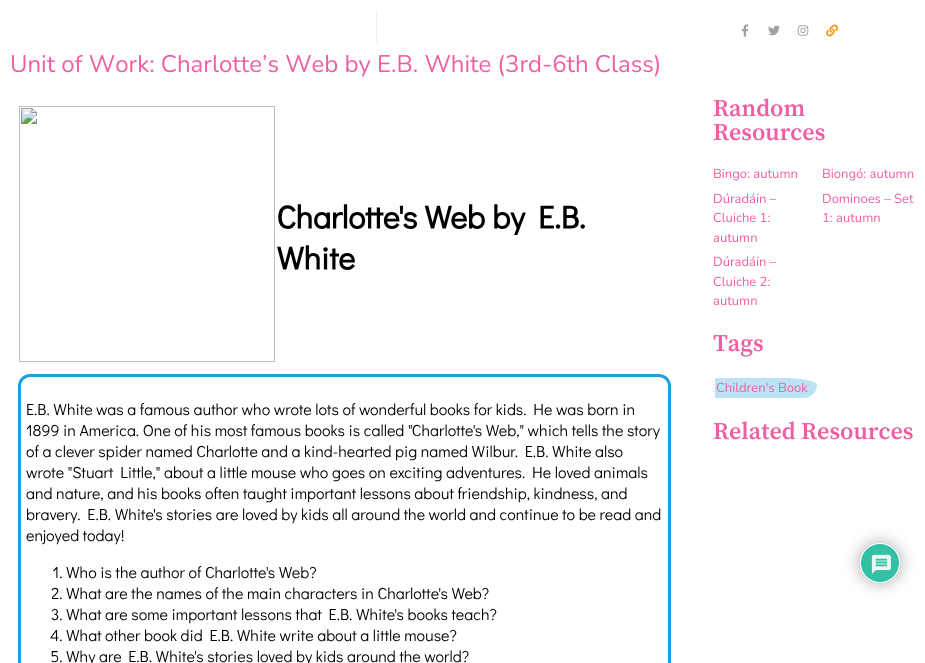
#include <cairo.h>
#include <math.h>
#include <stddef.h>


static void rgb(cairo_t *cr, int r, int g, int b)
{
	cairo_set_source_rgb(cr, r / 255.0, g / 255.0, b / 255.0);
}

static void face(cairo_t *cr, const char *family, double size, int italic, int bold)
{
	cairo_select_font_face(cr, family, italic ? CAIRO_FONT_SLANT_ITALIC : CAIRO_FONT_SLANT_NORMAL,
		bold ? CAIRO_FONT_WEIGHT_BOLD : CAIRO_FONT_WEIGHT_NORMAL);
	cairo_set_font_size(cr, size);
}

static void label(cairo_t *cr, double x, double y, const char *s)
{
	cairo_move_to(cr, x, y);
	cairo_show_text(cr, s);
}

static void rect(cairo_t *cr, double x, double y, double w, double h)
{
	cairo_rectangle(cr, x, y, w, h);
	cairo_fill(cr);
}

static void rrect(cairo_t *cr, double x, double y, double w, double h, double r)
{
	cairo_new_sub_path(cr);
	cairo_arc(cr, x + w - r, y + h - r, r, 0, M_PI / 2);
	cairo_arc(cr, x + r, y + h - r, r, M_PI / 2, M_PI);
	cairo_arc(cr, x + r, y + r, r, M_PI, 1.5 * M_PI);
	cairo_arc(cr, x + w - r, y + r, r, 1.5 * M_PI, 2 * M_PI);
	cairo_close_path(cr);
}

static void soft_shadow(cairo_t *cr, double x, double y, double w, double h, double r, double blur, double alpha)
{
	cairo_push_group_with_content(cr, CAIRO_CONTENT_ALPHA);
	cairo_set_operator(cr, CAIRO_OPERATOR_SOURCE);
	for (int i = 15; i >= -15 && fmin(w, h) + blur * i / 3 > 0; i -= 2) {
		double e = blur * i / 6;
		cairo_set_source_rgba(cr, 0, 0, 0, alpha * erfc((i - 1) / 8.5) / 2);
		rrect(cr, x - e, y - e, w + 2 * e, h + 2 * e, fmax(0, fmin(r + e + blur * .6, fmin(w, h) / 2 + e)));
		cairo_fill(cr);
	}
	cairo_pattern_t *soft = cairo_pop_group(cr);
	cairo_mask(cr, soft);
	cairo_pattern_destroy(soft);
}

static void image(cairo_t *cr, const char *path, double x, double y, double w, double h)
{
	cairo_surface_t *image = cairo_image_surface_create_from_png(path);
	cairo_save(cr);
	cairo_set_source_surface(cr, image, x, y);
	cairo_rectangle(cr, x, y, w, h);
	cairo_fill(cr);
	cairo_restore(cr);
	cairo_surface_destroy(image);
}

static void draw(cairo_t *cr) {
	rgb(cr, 255, 255, 255);
	cairo_paint(cr);
	rgb(cr, 235, 236, 237);
	rect(cr, 376, 11, 1, 31);
	image(cr, "image0.png", 741, 24, 8, 13);
	image(cr, "image1.png", 768, 25, 12, 11);
	image(cr, "image2.png", 797, 25, 12, 11);
	image(cr, "image3.png", 826, 24, 12, 13);
	face(cr, "Nunito", 24, 0, 0);
	rgb(cr, 239, 93, 162);
	label(cr, 10, 72, "Unit of Work: Charlotte’s Web by E.B. White (3rd-6th Class)");
	image(cr, "image4.png", 18, 106, 653, 557);
	face(cr, "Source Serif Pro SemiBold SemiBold", 24, 0, 0);
	label(cr, 713, 116, "Random");
	label(cr, 713, 140, "Resources");
	face(cr, "Nunito", 13, 0, 0);
	label(cr, 713, 178, "Bingo: autumn");
	label(cr, 822, 178, "Biongó: autumn");
	label(cr, 713, 203, "Dúradáin –");
	label(cr, 713, 222, "Cluiche 1:");
	label(cr, 713, 242, "autumn");
	label(cr, 822, 203, "Dominoes – Set");
	label(cr, 822, 222, "1: autumn");
	label(cr, 713, 266, "Dúradáin –");
	label(cr, 713, 286, "Cluiche 2:");
	label(cr, 713, 305, "autumn");
	face(cr, "Source Serif Pro SemiBold SemiBold", 24, 0, 0);
	label(cr, 713, 351, "Tags");
	rgb(cr, 187, 227, 245);
	cairo_new_path(cr);
	cairo_move_to(cr, 715, 378);
	cairo_line_to(cr, 783, 378);
	cairo_curve_to(cr, 802, 378, 817, 381, 817, 385);
	cairo_curve_to(cr, 817, 392, 811, 398, 804, 398);
	cairo_line_to(cr, 715, 398);
	cairo_close_path(cr);
	cairo_fill(cr);
	face(cr, "Nunito", 13, 0, 0);
	rgb(cr, 239, 93, 162);
	label(cr, 716, 392, "Children's Book");
	face(cr, "Source Serif Pro SemiBold SemiBold", 24, 0, 0);
	label(cr, 713, 439, "Related Resources");
	rgb(cr, 179, 179, 179);
	soft_shadow(cr, 860, 543, 40, 40, 20, 7.5, 1);
	rgb(cr, 52, 192, 164);
	cairo_arc(cr, 880, 563, 19.5, 0, 2 * M_PI);
	cairo_fill_preserve(cr);
	rgb(cr, 255, 255, 255);
	cairo_set_line_width(cr, 1);
	cairo_stroke(cr);
	image(cr, "image5.png", 871, 554, 20, 20);
}

int main(void) {
	cairo_surface_t *surface = cairo_image_surface_create(CAIRO_FORMAT_RGB24, 925, 663);
	cairo_t *cr = cairo_create(surface);
	cairo_font_options_t *options = cairo_font_options_create();
	cairo_font_options_set_hint_metrics(options, CAIRO_HINT_METRICS_OFF);
	cairo_font_options_set_hint_style(options, CAIRO_HINT_STYLE_NONE);
	cairo_set_font_options(cr, options);
	cairo_set_miter_limit(cr, 4);
	draw(cr);
	cairo_surface_write_to_png(surface, "render.png");
	cairo_font_options_destroy(options);
	cairo_destroy(cr);
	cairo_surface_destroy(surface);
	return 0;
}
